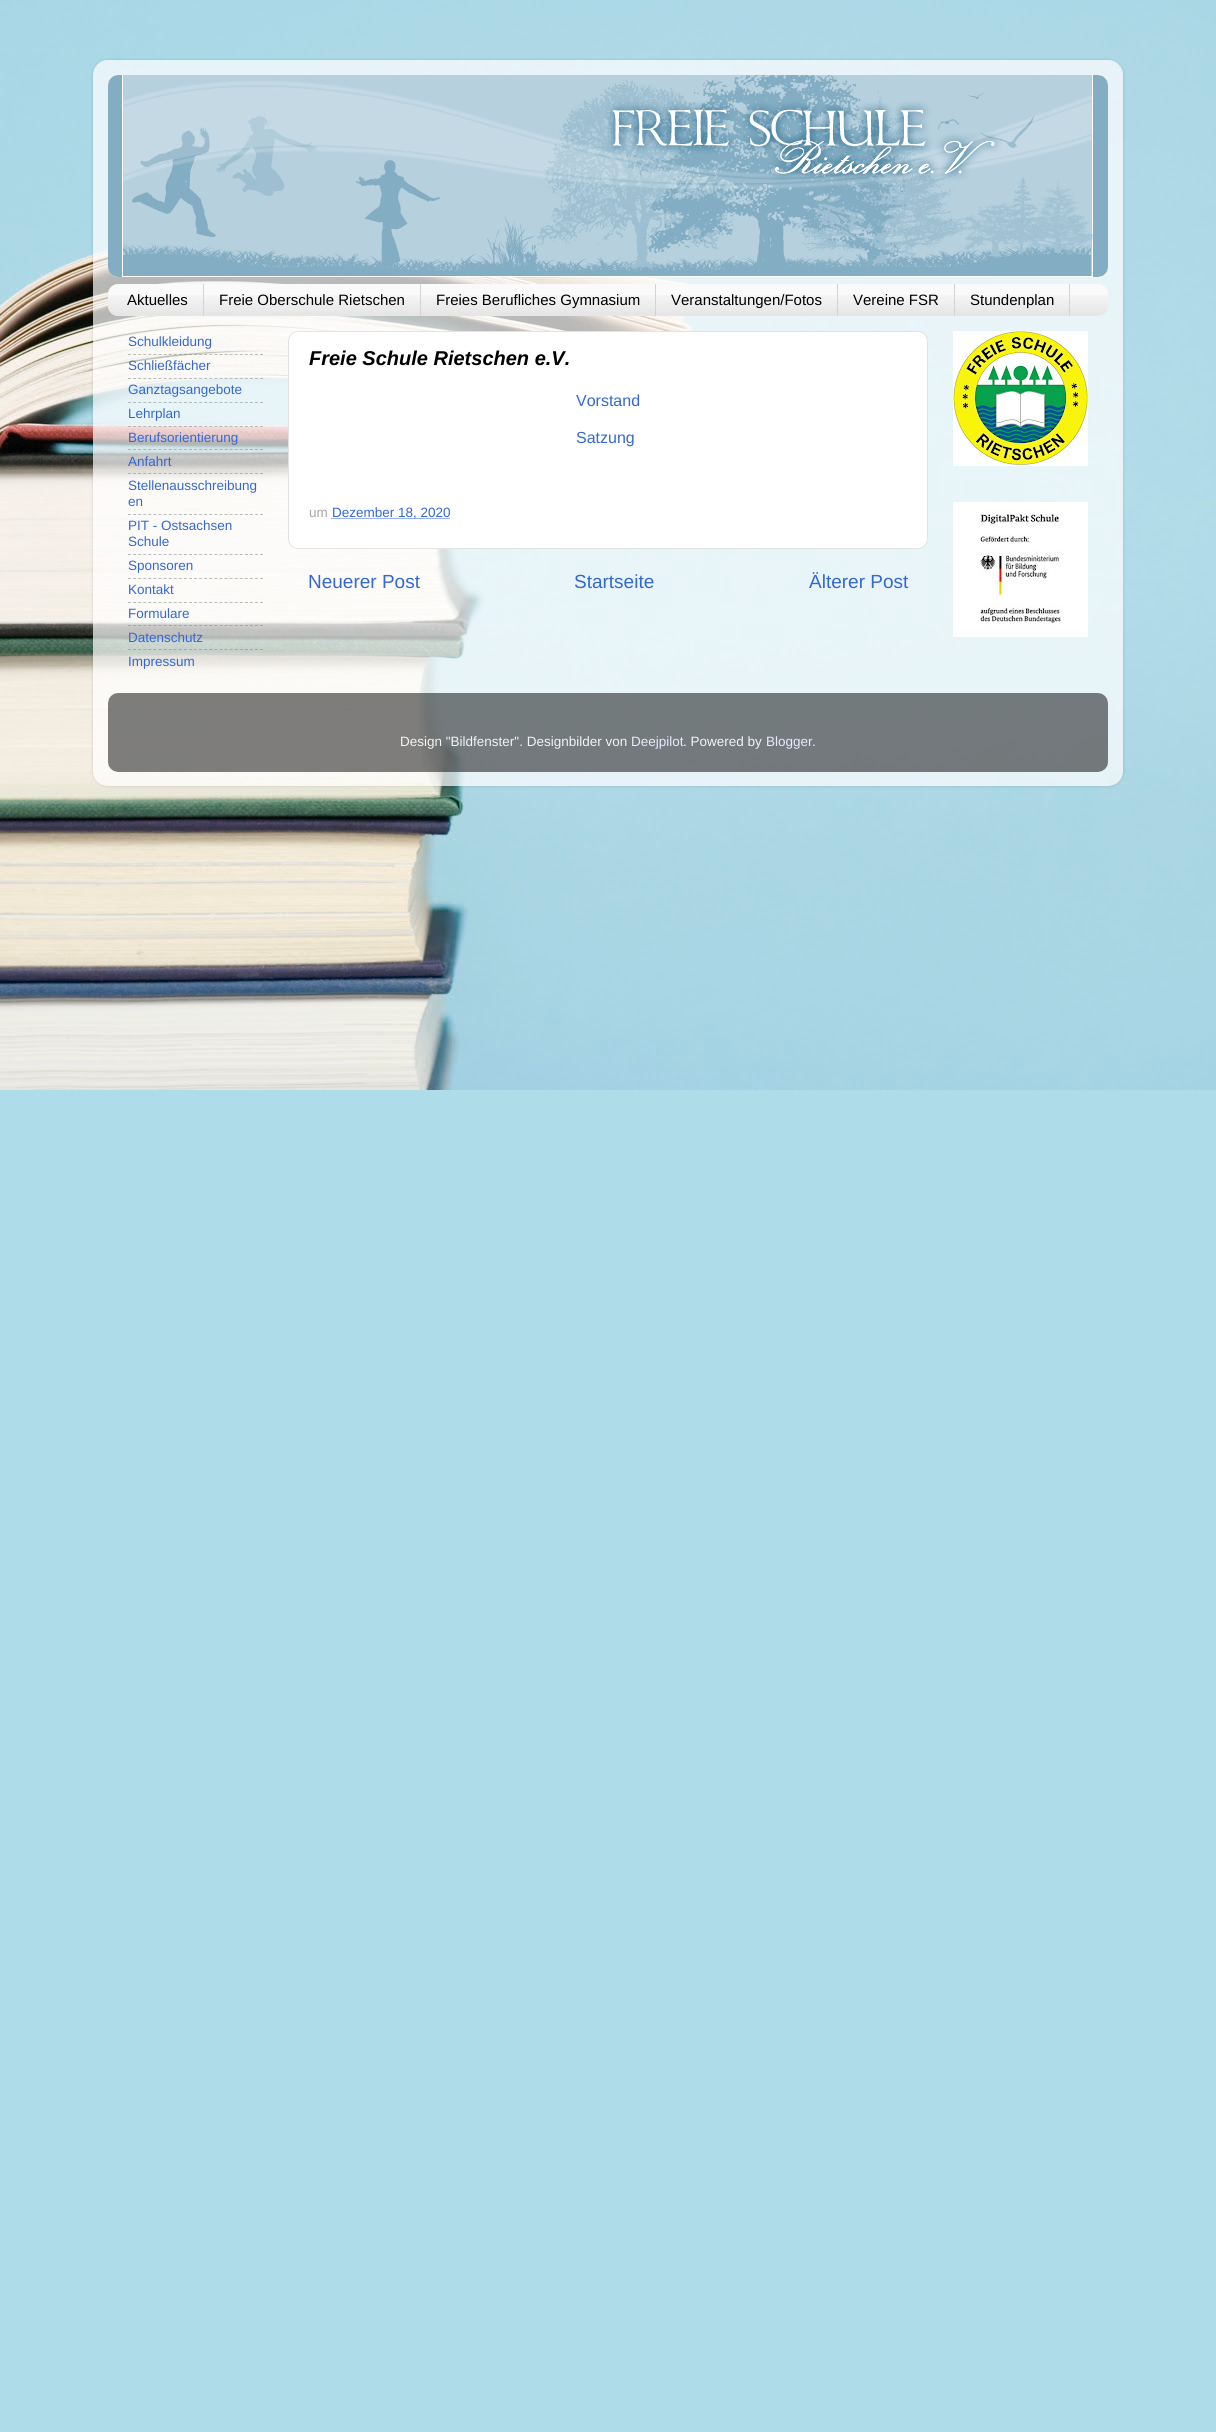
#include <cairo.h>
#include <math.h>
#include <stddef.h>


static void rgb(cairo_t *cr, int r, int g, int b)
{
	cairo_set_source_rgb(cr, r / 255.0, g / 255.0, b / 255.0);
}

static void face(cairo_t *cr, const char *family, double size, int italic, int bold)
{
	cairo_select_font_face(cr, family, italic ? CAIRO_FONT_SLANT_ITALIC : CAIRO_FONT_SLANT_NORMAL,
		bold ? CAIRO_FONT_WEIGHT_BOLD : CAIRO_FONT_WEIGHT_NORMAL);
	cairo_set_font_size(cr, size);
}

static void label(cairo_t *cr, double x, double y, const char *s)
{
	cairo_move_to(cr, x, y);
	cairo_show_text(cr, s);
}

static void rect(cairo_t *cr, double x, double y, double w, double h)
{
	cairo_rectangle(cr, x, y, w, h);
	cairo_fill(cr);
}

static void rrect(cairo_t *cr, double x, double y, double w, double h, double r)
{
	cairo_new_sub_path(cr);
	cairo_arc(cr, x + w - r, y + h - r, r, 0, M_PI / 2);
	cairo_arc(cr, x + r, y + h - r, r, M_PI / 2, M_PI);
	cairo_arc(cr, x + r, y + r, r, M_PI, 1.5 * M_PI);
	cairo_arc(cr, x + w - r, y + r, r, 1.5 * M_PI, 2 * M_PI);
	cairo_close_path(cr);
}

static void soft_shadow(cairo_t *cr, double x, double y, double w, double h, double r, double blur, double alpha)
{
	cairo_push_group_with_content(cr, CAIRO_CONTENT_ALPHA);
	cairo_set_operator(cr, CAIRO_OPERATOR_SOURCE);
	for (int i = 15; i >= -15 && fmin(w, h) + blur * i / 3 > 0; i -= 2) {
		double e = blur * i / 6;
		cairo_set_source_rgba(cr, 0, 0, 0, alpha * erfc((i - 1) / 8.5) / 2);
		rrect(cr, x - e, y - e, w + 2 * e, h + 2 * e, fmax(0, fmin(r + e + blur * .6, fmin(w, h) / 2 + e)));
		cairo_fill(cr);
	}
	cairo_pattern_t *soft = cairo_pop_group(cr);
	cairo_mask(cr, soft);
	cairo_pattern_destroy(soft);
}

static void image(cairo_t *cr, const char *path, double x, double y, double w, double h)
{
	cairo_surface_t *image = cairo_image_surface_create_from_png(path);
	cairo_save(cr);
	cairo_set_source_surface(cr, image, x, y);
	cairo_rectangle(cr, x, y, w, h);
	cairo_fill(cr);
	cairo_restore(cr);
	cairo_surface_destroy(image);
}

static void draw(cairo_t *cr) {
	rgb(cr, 174, 220, 233);
	cairo_paint(cr);
	image(cr, "image0.png", 0, 0, 1216, 1090);
	cairo_save(cr);
	cairo_set_fill_rule(cr, CAIRO_FILL_RULE_EVEN_ODD);
	cairo_new_path(cr);
	cairo_move_to(cr, 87, 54);
	cairo_line_to(cr, 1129, 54);
	cairo_line_to(cr, 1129, 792);
	cairo_line_to(cr, 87, 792);
	cairo_close_path(cr);
	cairo_move_to(cr, 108, 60);
	cairo_line_to(cr, 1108, 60);
	cairo_curve_to(cr, 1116.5, 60, 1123, 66.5, 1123, 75);
	cairo_line_to(cr, 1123, 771);
	cairo_curve_to(cr, 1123, 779.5, 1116.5, 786, 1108, 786);
	cairo_line_to(cr, 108, 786);
	cairo_curve_to(cr, 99.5, 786, 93, 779.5, 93, 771);
	cairo_line_to(cr, 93, 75);
	cairo_curve_to(cr, 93, 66.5, 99.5, 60, 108, 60);
	cairo_close_path(cr);
	cairo_clip(cr);
	rgb(cr, 0, 0, 0);
	soft_shadow(cr, 93, 60, 1030, 726, 15, 1.5, 0.15);
	cairo_restore(cr);
	image(cr, "image1.png", 93, 60, 1030, 726);
	rgb(cr, 212, 212, 212);
	rrect(cr, 108, 75, 1000, 202, 10);
	cairo_fill(cr);
	image(cr, "image2.png", 108, 75, 1000, 10);
	image(cr, "image3.png", 108, 75, 1000, 202);
	rgb(cr, 250, 250, 250);
	rrect(cr, 108, 284, 1000, 32, 10);
	cairo_fill(cr);
	image(cr, "image4.png", 108, 295, 1000, 21);
	rgb(cr, 212, 212, 212);
	rect(cr, 203, 284, 1, 32);
	face(cr, "Liberation Sans", 15, 0, 0);
	rgb(cr, 0, 0, 0);
	label(cr, 127, 305, "Aktuelles");
	rgb(cr, 212, 212, 212);
	rect(cr, 420, 284, 1, 32);
	rgb(cr, 0, 0, 0);
	label(cr, 219, 305, "Freie Oberschule Rietschen");
	rgb(cr, 212, 212, 212);
	rect(cr, 655, 284, 1, 32);
	rgb(cr, 0, 0, 0);
	label(cr, 436, 305, "Freies Berufliches Gymnasium");
	rgb(cr, 212, 212, 212);
	rect(cr, 837, 284, 1, 32);
	rgb(cr, 0, 0, 0);
	label(cr, 671, 305, "Veranstaltungen/Fotos");
	rgb(cr, 212, 212, 212);
	rect(cr, 954, 284, 1, 32);
	rgb(cr, 0, 0, 0);
	label(cr, 853, 305, "Vereine FSR");
	rgb(cr, 212, 212, 212);
	rect(cr, 1069, 284, 1, 32);
	rgb(cr, 0, 0, 0);
	label(cr, 970, 305, "Stundenplan");
	face(cr, "Liberation Sans", 13.5, 0, 0);
	rgb(cr, 51, 103, 214);
	label(cr, 128, 346, "Schulkleidung");
	cairo_new_path(cr);
	cairo_move_to(cr, 128, 354.5);
	cairo_line_to(cr, 263, 354.5);
	cairo_set_source_rgba(cr, 0.502, 0.502, 0.502, 0.5);
	cairo_set_line_width(cr, 1);
	cairo_set_dash(cr, (double[]){3, 2.08}, 2, 0);
	cairo_stroke(cr);
	rgb(cr, 51, 103, 214);
	label(cr, 128, 370, "Schließfächer");
	cairo_new_path(cr);
	cairo_move_to(cr, 128, 378.5);
	cairo_line_to(cr, 263, 378.5);
	cairo_set_source_rgba(cr, 0.502, 0.502, 0.502, 0.5);
	cairo_stroke(cr);
	rgb(cr, 51, 103, 214);
	label(cr, 128, 394, "Ganztagsangebote");
	cairo_new_path(cr);
	cairo_move_to(cr, 128, 402.5);
	cairo_line_to(cr, 263, 402.5);
	rgb(cr, 180, 186, 188);
	cairo_stroke(cr);
	rgb(cr, 51, 103, 214);
	label(cr, 128, 418, "Lehrplan");
	cairo_new_path(cr);
	cairo_move_to(cr, 128, 426.5);
	cairo_line_to(cr, 263, 426.5);
	cairo_set_source_rgba(cr, 0.502, 0.502, 0.502, 0.5);
	cairo_stroke(cr);
	rgb(cr, 51, 103, 214);
	label(cr, 128, 442, "Berufsorientierung");
	cairo_new_path(cr);
	cairo_move_to(cr, 128, 449.5);
	cairo_line_to(cr, 263, 449.5);
	cairo_set_source_rgba(cr, 0.502, 0.502, 0.502, 0.5);
	cairo_stroke(cr);
	rgb(cr, 51, 103, 214);
	label(cr, 128, 466, "Anfahrt");
	cairo_new_path(cr);
	cairo_move_to(cr, 128, 473.5);
	cairo_line_to(cr, 263, 473.5);
	cairo_set_source_rgba(cr, 0.502, 0.502, 0.502, 0.5);
	cairo_stroke(cr);
	rgb(cr, 51, 103, 214);
	label(cr, 128, 490, "Stellenausschreibung");
	label(cr, 128, 506, "en");
	cairo_new_path(cr);
	cairo_move_to(cr, 128, 514.5);
	cairo_line_to(cr, 263, 514.5);
	rgb(cr, 190, 190, 189);
	cairo_stroke(cr);
	rgb(cr, 51, 103, 214);
	label(cr, 128, 530, "PIT - Ostsachsen");
	label(cr, 128, 546, "Schule");
	cairo_new_path(cr);
	cairo_move_to(cr, 128, 554.5);
	cairo_line_to(cr, 263, 554.5);
	rgb(cr, 190, 189, 188);
	cairo_stroke(cr);
	rgb(cr, 51, 103, 214);
	label(cr, 128, 570, "Sponsoren");
	cairo_new_path(cr);
	cairo_move_to(cr, 128, 578.5);
	cairo_line_to(cr, 263, 578.5);
	rgb(cr, 190, 189, 188);
	cairo_stroke(cr);
	rgb(cr, 51, 103, 214);
	label(cr, 128, 594, "Kontakt");
	cairo_new_path(cr);
	cairo_move_to(cr, 128, 602.5);
	cairo_line_to(cr, 263, 602.5);
	rgb(cr, 190, 189, 188);
	cairo_stroke(cr);
	rgb(cr, 51, 103, 214);
	label(cr, 128, 618, "Formulare");
	cairo_new_path(cr);
	cairo_move_to(cr, 128, 625.5);
	cairo_line_to(cr, 263, 625.5);
	cairo_set_source_rgba(cr, 0.502, 0.502, 0.502, 0.5);
	cairo_stroke(cr);
	rgb(cr, 51, 103, 214);
	label(cr, 128, 642, "Datenschutz");
	cairo_new_path(cr);
	cairo_move_to(cr, 128, 649.5);
	cairo_line_to(cr, 263, 649.5);
	cairo_set_source_rgba(cr, 0.502, 0.502, 0.502, 0.5);
	cairo_stroke(cr);
	rgb(cr, 51, 103, 214);
	label(cr, 128, 666, "Impressum");
	rgb(cr, 255, 255, 255);
	rrect(cr, 288.5, 331.5, 639, 217, 9.5);
	cairo_fill_preserve(cr);
	rgb(cr, 227, 227, 227);
	cairo_set_dash(cr, NULL, 0, 0);
	cairo_stroke(cr);
	face(cr, "Liberation Sans", 20, 1, 1);
	rgb(cr, 0, 0, 0);
	label(cr, 309, 365, "Freie Schule Rietschen e.V.");
	face(cr, "Liberation Sans", 16, 0, 0);
	rgb(cr, 51, 103, 214);
	label(cr, 576, 406, "Vorstand");
	label(cr, 576, 443, "Satzung");
	face(cr, "Liberation Sans", 13.5, 0, 0);
	rgb(cr, 166, 166, 166);
	label(cr, 309, 517, "um");
	cairo_new_path(cr);
	cairo_move_to(cr, 331.5, 518.5);
	cairo_line_to(cr, 450, 518.5);
	rgb(cr, 51, 103, 214);
	cairo_set_dash(cr, (double[]){1, 1}, 2, 0);
	cairo_stroke(cr);
	label(cr, 332, 517, "Dezember 18, 2020");
	face(cr, "Liberation Sans", 19, 0, 0);
	label(cr, 308, 588, "Neuerer Post");
	label(cr, 574, 588, "Startseite");
	label(cr, 809, 588, "Älterer Post");
	image(cr, "image5.png", 953, 331, 135, 135);
	image(cr, "image6.png", 953, 502, 135, 135);
	image(cr, "image7.png", 108, 693, 1000, 79);
	face(cr, "Liberation Sans", 13.5, 0, 0);
	rgb(cr, 244, 244, 244);
	label(cr, 400, 746, "Design \"Bildfenster\". Designbilder von");
	rgb(cr, 234, 232, 255);
	label(cr, 631, 746, "Deejpilot");
	rgb(cr, 244, 244, 244);
	label(cr, 683, 746, ". Powered by");
	rgb(cr, 234, 232, 255);
	label(cr, 766, 746, "Blogger");
	rgb(cr, 244, 244, 244);
	label(cr, 812, 746, ".");
}

int main(void) {
	cairo_surface_t *surface = cairo_image_surface_create(CAIRO_FORMAT_RGB24, 1216, 2432);
	cairo_t *cr = cairo_create(surface);
	cairo_font_options_t *options = cairo_font_options_create();
	cairo_font_options_set_hint_metrics(options, CAIRO_HINT_METRICS_OFF);
	cairo_font_options_set_hint_style(options, CAIRO_HINT_STYLE_NONE);
	cairo_set_font_options(cr, options);
	cairo_set_miter_limit(cr, 4);
	draw(cr);
	cairo_surface_write_to_png(surface, "render.png");
	cairo_font_options_destroy(options);
	cairo_destroy(cr);
	cairo_surface_destroy(surface);
	return 0;
}
